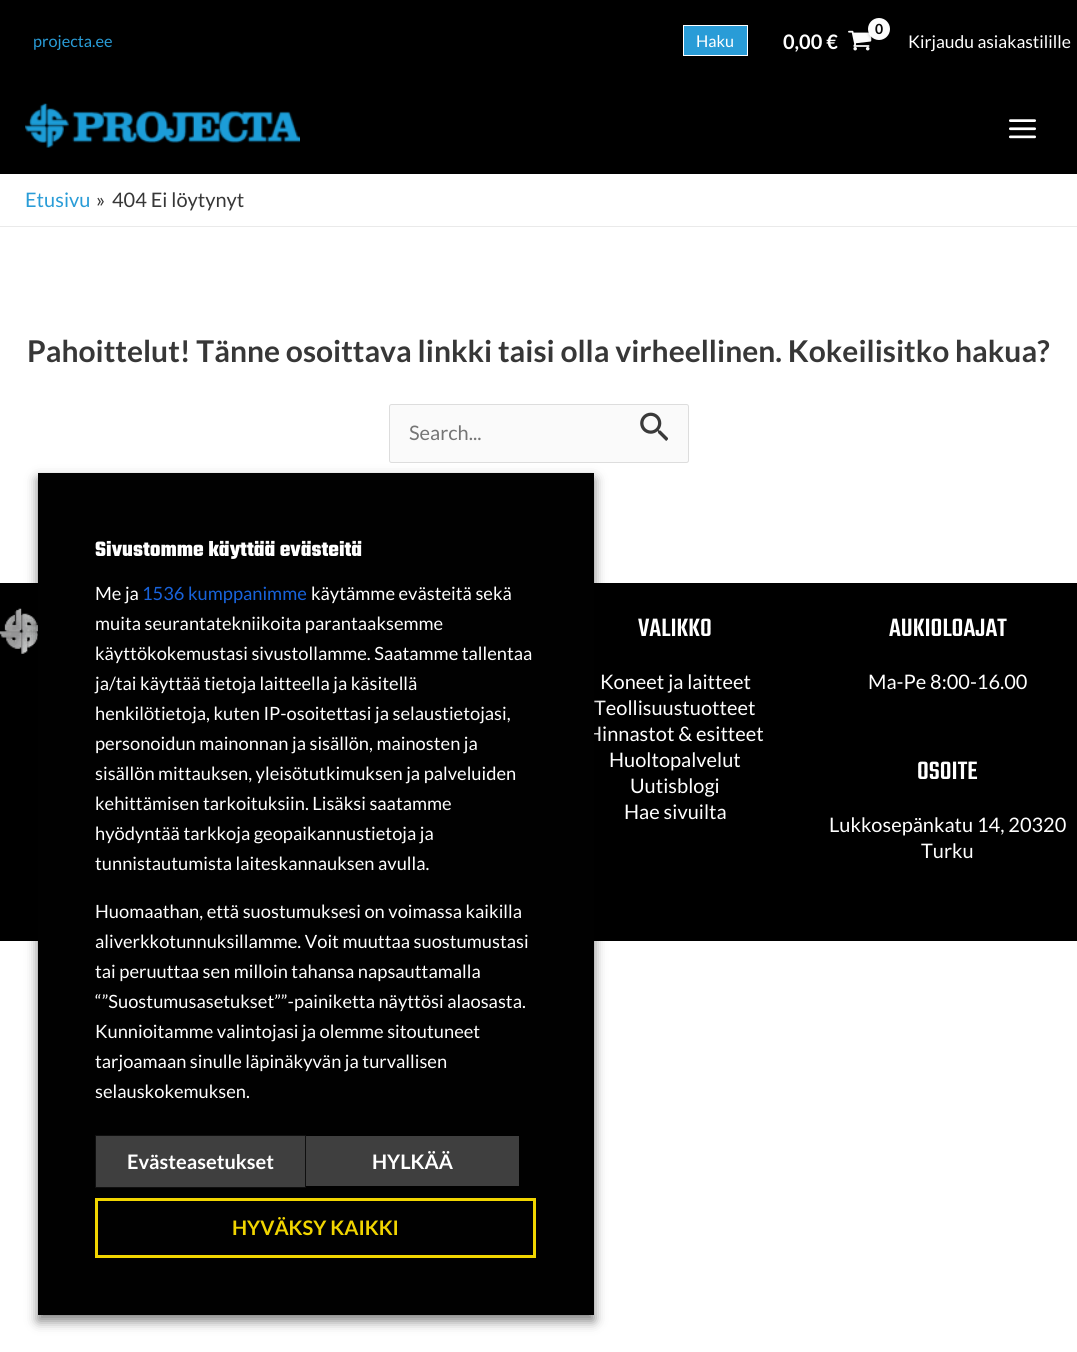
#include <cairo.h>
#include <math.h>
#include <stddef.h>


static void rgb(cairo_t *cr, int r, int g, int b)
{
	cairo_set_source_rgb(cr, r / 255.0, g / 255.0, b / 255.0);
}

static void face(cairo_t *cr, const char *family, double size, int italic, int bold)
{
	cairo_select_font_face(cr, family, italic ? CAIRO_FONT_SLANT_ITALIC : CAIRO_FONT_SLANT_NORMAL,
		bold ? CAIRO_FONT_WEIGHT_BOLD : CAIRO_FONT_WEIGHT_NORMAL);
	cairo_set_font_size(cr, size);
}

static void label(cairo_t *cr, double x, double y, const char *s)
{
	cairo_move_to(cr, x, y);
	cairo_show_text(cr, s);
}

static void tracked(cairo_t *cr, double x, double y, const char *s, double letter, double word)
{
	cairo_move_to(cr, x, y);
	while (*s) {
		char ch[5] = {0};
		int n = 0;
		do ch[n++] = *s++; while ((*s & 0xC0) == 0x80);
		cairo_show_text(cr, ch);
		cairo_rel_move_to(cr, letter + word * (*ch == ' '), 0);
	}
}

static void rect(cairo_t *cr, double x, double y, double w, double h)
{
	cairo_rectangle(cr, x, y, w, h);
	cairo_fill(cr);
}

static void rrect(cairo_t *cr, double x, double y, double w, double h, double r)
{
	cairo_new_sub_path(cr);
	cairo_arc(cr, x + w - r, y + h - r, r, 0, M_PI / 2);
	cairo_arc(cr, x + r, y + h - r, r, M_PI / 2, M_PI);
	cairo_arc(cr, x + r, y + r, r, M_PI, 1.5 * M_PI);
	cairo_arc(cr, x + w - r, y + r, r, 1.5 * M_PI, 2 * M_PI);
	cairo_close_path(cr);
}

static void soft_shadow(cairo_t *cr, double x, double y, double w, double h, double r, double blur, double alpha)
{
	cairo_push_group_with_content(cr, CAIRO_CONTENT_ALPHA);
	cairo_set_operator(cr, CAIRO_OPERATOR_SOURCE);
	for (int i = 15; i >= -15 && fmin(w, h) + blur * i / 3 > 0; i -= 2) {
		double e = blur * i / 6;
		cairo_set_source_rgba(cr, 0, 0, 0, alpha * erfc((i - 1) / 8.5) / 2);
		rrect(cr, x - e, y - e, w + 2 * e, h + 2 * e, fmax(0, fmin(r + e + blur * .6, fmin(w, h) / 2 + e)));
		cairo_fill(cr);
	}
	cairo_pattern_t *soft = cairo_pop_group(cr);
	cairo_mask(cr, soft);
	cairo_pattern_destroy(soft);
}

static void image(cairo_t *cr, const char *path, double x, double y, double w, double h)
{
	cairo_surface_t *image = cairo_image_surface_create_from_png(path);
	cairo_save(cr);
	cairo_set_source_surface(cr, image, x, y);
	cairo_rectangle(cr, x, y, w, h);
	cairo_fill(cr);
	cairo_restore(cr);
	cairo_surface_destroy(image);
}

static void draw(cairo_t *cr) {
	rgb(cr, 255, 255, 255);
	cairo_paint(cr);
	rgb(cr, 0, 0, 0);
	rect(cr, 0, 0, 1077, 174);
	face(cr, "Lato", 16.25, 0, 0);
	rgb(cr, 41, 156, 215);
	label(cr, 33, 47, "projecta.ee");
	cairo_rectangle(cr, 683.5, 25.5, 64, 30);
	cairo_fill_preserve(cr);
	rgb(cr, 255, 255, 255);
	cairo_set_line_width(cr, 1);
	cairo_stroke(cr);
	label(cr, 696, 47, "Haku");
	image(cr, "image0.png", 848, 30, 24, 21);
	cairo_save(cr);
	cairo_set_fill_rule(cr, CAIRO_FILL_RULE_EVEN_ODD);
	cairo_new_path(cr);
	cairo_move_to(cr, 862, 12);
	cairo_line_to(cr, 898, 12);
	cairo_line_to(cr, 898, 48);
	cairo_line_to(cr, 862, 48);
	cairo_close_path(cr);
	cairo_move_to(cr, 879, 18);
	cairo_curve_to(cr, 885, 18, 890, 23, 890, 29);
	cairo_curve_to(cr, 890, 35, 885, 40, 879, 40);
	cairo_curve_to(cr, 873, 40, 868, 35, 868, 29);
	cairo_curve_to(cr, 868, 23, 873, 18, 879, 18);
	cairo_close_path(cr);
	cairo_clip(cr);
	rgb(cr, 0, 0, 0);
	soft_shadow(cr, 869, 19, 22, 22, 11, 2, 0.3);
	cairo_restore(cr);
	cairo_set_source_rgba(cr, 1, 1, 1, 0.99);
	cairo_arc(cr, 879, 29, 11, 0, 2 * M_PI);
	cairo_fill(cr);
	face(cr, "Lato", 14, 0, 1);
	rgb(cr, 5, 5, 5);
	tracked(cr, 875, 34, "0", -1, 0);
	face(cr, "Lato", 20, 0, 1);
	rgb(cr, 255, 255, 255);
	label(cr, 783, 49, "0,00 €");
	face(cr, "Lato", 17.5, 0, 0);
	label(cr, 908, 48, "Kirjaudu asiakastilille");
	image(cr, "image1.png", 25, 103, 275, 45);
	image(cr, "image2.png", 1009, 119, 27, 20);
	rgb(cr, 234, 234, 234);
	rect(cr, 0, 226, 1077, 1);
	face(cr, "Lato", 20, 0, 0);
	rgb(cr, 41, 156, 215);
	label(cr, 25, 207, "Etusivu");
	rgb(cr, 55, 55, 55);
	label(cr, 96, 207, "»");
	label(cr, 112, 207, "404 Ei löytynyt");
	face(cr, "Lato", 30, 0, 1);
	label(cr, 27, 362, "Pahoittelut! Tänne osoittava linkki taisi olla virheellinen. Kokeilisitko hakua?");
	rgb(cr, 250, 250, 250);
	rrect(cr, 389.5, 404.5, 299, 58, 2);
	cairo_fill_preserve(cr);
	rgb(cr, 221, 221, 221);
	cairo_stroke(cr);
	face(cr, "Lato", 20, 0, 0);
	rgb(cr, 117, 117, 117);
	label(cr, 409, 440, "Search...");
	image(cr, "image3.png", 640, 412, 28, 29);
	rgb(cr, 0, 0, 0);
	rect(cr, 0, 583, 1077, 358);
	image(cr, "image4.png", 0, 608, 38, 46);
	face(cr, "Teko Medium", 27.5, 0, 0);
	rgb(cr, 255, 255, 255);
	label(cr, 638, 636, "VALIKKO");
	face(cr, "Lato", 20, 0, 0);
	label(cr, 600, 689, "Koneet ja laitteet");
	label(cr, 594, 715, "Teollisuustuotteet");
	label(cr, 587, 741, "Hinnastot & esitteet");
	label(cr, 609, 767, "Huoltopalvelut");
	label(cr, 630, 793, "Uutisblogi");
	label(cr, 624, 819, "Hae sivuilta");
	face(cr, "Teko Medium", 27.5, 0, 0);
	label(cr, 889, 636, "AUKIOLOAJAT");
	face(cr, "Lato", 20, 0, 0);
	label(cr, 868, 689, "Ma-Pe 8:00-16.00");
	face(cr, "Teko Medium", 27.5, 0, 0);
	label(cr, 917, 779, "OSOITE");
	face(cr, "Lato", 20, 0, 0);
	label(cr, 829, 832, "Lukkosepänkatu 14, 20320");
	label(cr, 921, 858, "Turku");
	rgb(cr, 0, 0, 0);
	soft_shadow(cr, 38, 479, 556, 842, 0, 6, 0.5);
	rgb(cr, 1, 1, 1);
	rect(cr, 38, 473, 556, 842);
	face(cr, "Teko", 22.5, 0, 1);
	rgb(cr, 255, 255, 255);
	label(cr, 95, 556, "Sivustomme käyttää evästeitä");
	face(cr, "Lato", 18.3, 0, 0);
	label(cr, 95, 600, "Me ja");
	rgb(cr, 24, 99, 220);
	label(cr, 142, 600, "1536 kumppanimme");
	rgb(cr, 255, 255, 255);
	label(cr, 311, 600, "käytämme evästeitä sekä");
	label(cr, 95, 630, "muita seurantatekniikoita parantaaksemme");
	label(cr, 95, 660, "käyttökokemustasi sivustollamme. Saatamme tallentaa");
	label(cr, 95, 690, "ja/tai käyttää tietoja laitteella ja käsitellä");
	label(cr, 95, 720, "henkilötietoja, kuten IP-osoitettasi ja selaustietojasi,");
	label(cr, 95, 750, "personoidun mainonnan ja sisällön, mainosten ja");
	label(cr, 95, 780, "sisällön mittauksen, yleisötutkimuksen ja palveluiden");
	label(cr, 95, 810, "kehittämisen tarkoituksiin. Lisäksi saatamme");
	label(cr, 95, 840, "hyödyntää tarkkoja geopaikannustietoja ja");
	label(cr, 95, 870, "tunnistautumista laiteskannauksen avulla.");
	label(cr, 95, 918, "Huomaathan, että suostumuksesi on voimassa kaikilla");
	label(cr, 95, 948, "aliverkkotunnuksillamme. Voit muuttaa suostumustasi");
	label(cr, 95, 978, "tai peruuttaa sen milloin tahansa napsauttamalla");
	label(cr, 95, 1008, "“”Suostumusasetukset””-painiketta näyttösi alaosasta.");
	label(cr, 95, 1038, "Kunnioitamme valintojasi ja olemme sitoutuneet");
	label(cr, 95, 1068, "tarjoamaan sinulle läpinäkyvän ja turvallisen");
	label(cr, 95, 1098, "selauskokemuksen.");
	rgb(cr, 63, 63, 63);
	cairo_rectangle(cr, 95.5, 1135.5, 210, 52);
	cairo_fill_preserve(cr);
	rgb(cr, 15, 15, 15);
	cairo_stroke(cr);
	face(cr, "Lato", 20, 0, 1);
	rgb(cr, 255, 255, 255);
	label(cr, 127, 1169, "Evästeasetukset");
	rgb(cr, 63, 63, 63);
	rect(cr, 306, 1136, 213, 50);
	rgb(cr, 255, 255, 255);
	label(cr, 372, 1169, "HYLKÄÄ");
	cairo_rectangle(cr, 96.5, 1199.5, 438, 57);
	rgb(cr, 241, 213, 0);
	cairo_set_line_width(cr, 3);
	cairo_stroke(cr);
	label(cr, 232, 1235, "HYVÄKSY KAIKKI");
}

int main(void) {
	cairo_surface_t *surface = cairo_image_surface_create(CAIRO_FORMAT_RGB24, 1077, 1352);
	cairo_t *cr = cairo_create(surface);
	cairo_font_options_t *options = cairo_font_options_create();
	cairo_font_options_set_hint_metrics(options, CAIRO_HINT_METRICS_OFF);
	cairo_font_options_set_hint_style(options, CAIRO_HINT_STYLE_NONE);
	cairo_set_font_options(cr, options);
	cairo_set_miter_limit(cr, 4);
	draw(cr);
	cairo_surface_write_to_png(surface, "render.png");
	cairo_font_options_destroy(options);
	cairo_destroy(cr);
	cairo_surface_destroy(surface);
	return 0;
}
